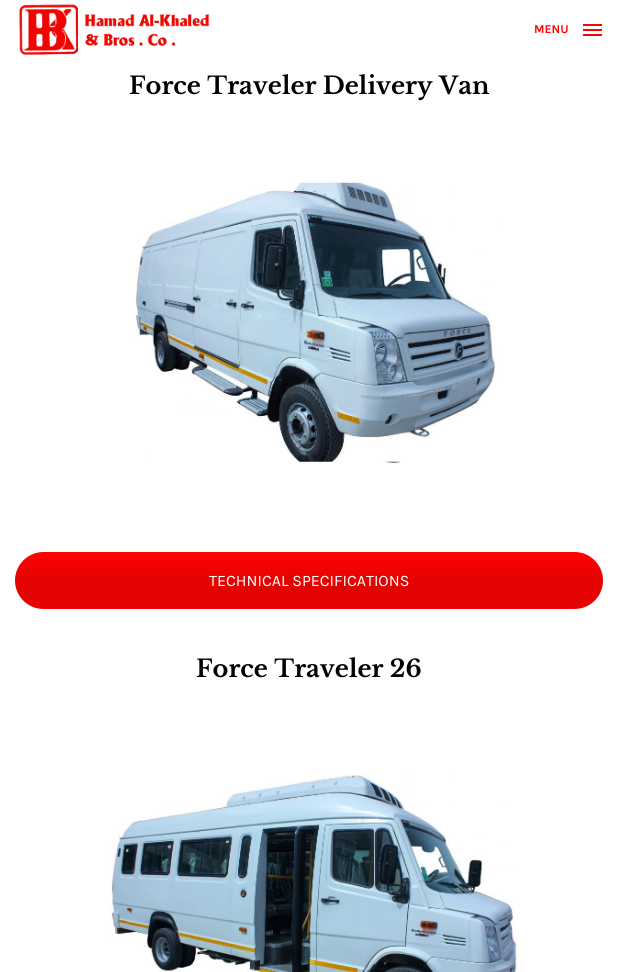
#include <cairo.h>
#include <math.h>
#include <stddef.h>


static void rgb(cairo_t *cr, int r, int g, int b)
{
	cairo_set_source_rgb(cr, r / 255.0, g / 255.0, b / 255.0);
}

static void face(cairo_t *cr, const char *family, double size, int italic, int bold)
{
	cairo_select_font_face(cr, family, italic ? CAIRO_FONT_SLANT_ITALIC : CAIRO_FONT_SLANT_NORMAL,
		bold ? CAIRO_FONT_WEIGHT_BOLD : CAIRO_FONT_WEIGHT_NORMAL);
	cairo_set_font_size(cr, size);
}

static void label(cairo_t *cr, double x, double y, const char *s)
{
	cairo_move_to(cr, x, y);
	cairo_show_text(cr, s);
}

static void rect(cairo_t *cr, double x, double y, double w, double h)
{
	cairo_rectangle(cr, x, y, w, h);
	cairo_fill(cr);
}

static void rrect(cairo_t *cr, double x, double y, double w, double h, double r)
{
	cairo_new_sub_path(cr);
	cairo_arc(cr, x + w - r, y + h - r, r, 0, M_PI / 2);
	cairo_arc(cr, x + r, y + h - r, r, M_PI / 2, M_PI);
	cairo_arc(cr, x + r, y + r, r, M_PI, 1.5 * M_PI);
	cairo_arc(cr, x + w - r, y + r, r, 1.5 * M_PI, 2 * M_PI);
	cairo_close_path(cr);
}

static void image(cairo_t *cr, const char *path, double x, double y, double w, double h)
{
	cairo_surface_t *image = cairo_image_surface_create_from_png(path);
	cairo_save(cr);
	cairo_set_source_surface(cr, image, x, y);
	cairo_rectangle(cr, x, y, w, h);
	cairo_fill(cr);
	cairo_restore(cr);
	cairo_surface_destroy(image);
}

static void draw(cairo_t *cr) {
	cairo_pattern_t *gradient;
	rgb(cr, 255, 255, 255);
	cairo_paint(cr);
	image(cr, "image0.png", 19, 4, 191, 51);
	face(cr, "Karla", 12, 0, 1);
	rgb(cr, 254, 3, 3);
	label(cr, 534, 33, "MENU");
	rect(cr, 583, 24, 19, 2);
	rect(cr, 583, 29, 19, 2);
	rect(cr, 583, 34, 19, 2);
	face(cr, "Libre Baskerville", 24, 0, 1);
	rgb(cr, 0, 0, 0);
	label(cr, 129, 94, "Force Traveler Delivery Van");
	image(cr, "image1.png", 134, 178, 363, 285);
	rgb(cr, 254, 3, 3);
	rrect(cr, 15, 552, 588, 57, 28.5);
	cairo_fill(cr);
	cairo_save(cr);
	rrect(cr, 15, 552, 588, 57, 28.5);
	cairo_clip(cr);
	gradient = cairo_pattern_create_linear(602, 553, 602, 608);
	cairo_pattern_add_color_stop_rgba(gradient, 0, 0, 0, 0, 0);
	cairo_pattern_add_color_stop_rgba(gradient, 0.5, 0, 0, 0, 0.1);
	cairo_pattern_add_color_stop_rgba(gradient, 1, 0, 0, 0, 0.1);
	cairo_set_source(cr, gradient);
	cairo_pattern_destroy(gradient);
	rect(cr, 15, 559, 588, 49);
	cairo_restore(cr);
	face(cr, "Karla", 16, 0, 0);
	rgb(cr, 255, 255, 255);
	label(cr, 209, 586, "TECHNICAL SPECIFICATIONS");
	face(cr, "Libre Baskerville", 24, 0, 1);
	rgb(cr, 0, 0, 0);
	label(cr, 196, 677, "Force Traveler 26");
	image(cr, "image2.png", 110, 774, 411, 198);
}

int main(void) {
	cairo_surface_t *surface = cairo_image_surface_create(CAIRO_FORMAT_RGB24, 618, 972);
	cairo_t *cr = cairo_create(surface);
	cairo_font_options_t *options = cairo_font_options_create();
	cairo_font_options_set_hint_metrics(options, CAIRO_HINT_METRICS_OFF);
	cairo_font_options_set_hint_style(options, CAIRO_HINT_STYLE_NONE);
	cairo_set_font_options(cr, options);
	cairo_set_miter_limit(cr, 4);
	draw(cr);
	cairo_surface_write_to_png(surface, "render.png");
	cairo_font_options_destroy(options);
	cairo_destroy(cr);
	cairo_surface_destroy(surface);
	return 0;
}
